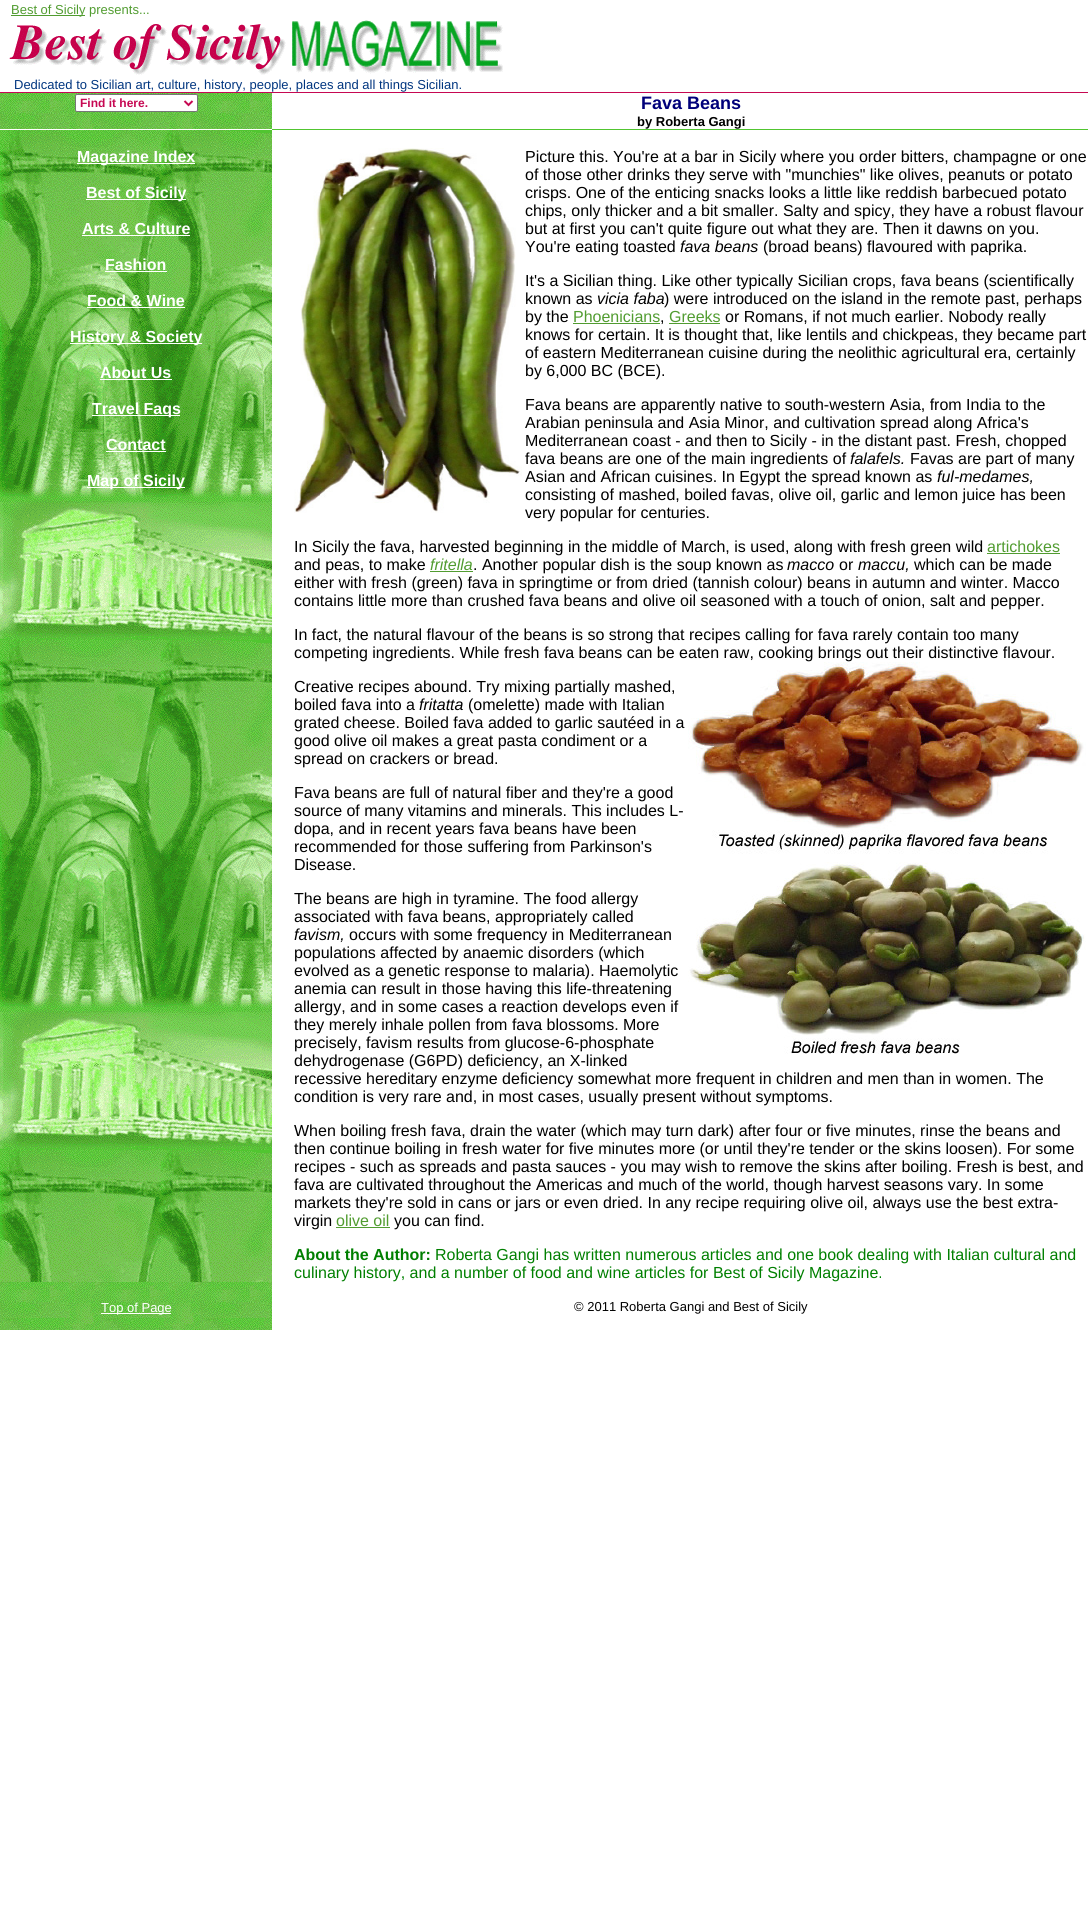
#include <cairo.h>
#include <math.h>
#include <stddef.h>


static void rgb(cairo_t *cr, int r, int g, int b)
{
	cairo_set_source_rgb(cr, r / 255.0, g / 255.0, b / 255.0);
}

static void face(cairo_t *cr, const char *family, double size, int italic, int bold)
{
	cairo_select_font_face(cr, family, italic ? CAIRO_FONT_SLANT_ITALIC : CAIRO_FONT_SLANT_NORMAL,
		bold ? CAIRO_FONT_WEIGHT_BOLD : CAIRO_FONT_WEIGHT_NORMAL);
	cairo_set_font_size(cr, size);
}

static void label(cairo_t *cr, double x, double y, const char *s)
{
	cairo_move_to(cr, x, y);
	cairo_show_text(cr, s);
}

static void rect(cairo_t *cr, double x, double y, double w, double h)
{
	cairo_rectangle(cr, x, y, w, h);
	cairo_fill(cr);
}

static void rrect(cairo_t *cr, double x, double y, double w, double h, double r)
{
	cairo_new_sub_path(cr);
	cairo_arc(cr, x + w - r, y + h - r, r, 0, M_PI / 2);
	cairo_arc(cr, x + r, y + h - r, r, M_PI / 2, M_PI);
	cairo_arc(cr, x + r, y + r, r, M_PI, 1.5 * M_PI);
	cairo_arc(cr, x + w - r, y + r, r, 1.5 * M_PI, 2 * M_PI);
	cairo_close_path(cr);
}

static void image(cairo_t *cr, const char *path, double x, double y, double w, double h)
{
	cairo_surface_t *image = cairo_image_surface_create_from_png(path);
	cairo_save(cr);
	cairo_set_source_surface(cr, image, x, y);
	cairo_rectangle(cr, x, y, w, h);
	cairo_fill(cr);
	cairo_restore(cr);
	cairo_surface_destroy(image);
}

static void draw(cairo_t *cr) {
	rgb(cr, 255, 255, 255);
	cairo_paint(cr);
	rgb(cr, 81, 156, 48);
	rect(cr, 11, 15, 74, 1);
	face(cr, "Liberation Sans", 13, 0, 0);
	label(cr, 11, 14, "Best of Sicily presents...");
	image(cr, "image0.png", 9, 20, 494, 55);
	rgb(cr, 0, 53, 127);
	label(cr, 14, 89, "Dedicated to Sicilian art, culture, history, people, places and all things Sicilian.");
	rgb(cr, 198, 8, 82);
	rect(cr, 0, 92, 1088, 1);
	image(cr, "image1.png", 0, 93, 272, 36);
	rgb(cr, 255, 255, 255);
	rrect(cr, 75.5, 94.5, 122, 17, 1.5);
	cairo_fill_preserve(cr);
	rgb(cr, 118, 118, 118);
	cairo_set_line_width(cr, 1);
	cairo_stroke(cr);
	cairo_new_path(cr);
	cairo_move_to(cr, 184.5, 101);
	cairo_line_to(cr, 188.5, 105);
	cairo_line_to(cr, 192.5, 101);
	rgb(cr, 198, 8, 82);
	cairo_set_line_width(cr, 2);
	cairo_stroke(cr);
	face(cr, "Liberation Sans", 12, 0, 1);
	label(cr, 80, 107, "Find it here.");
	face(cr, "Liberation Sans", 18, 0, 1);
	rgb(cr, 0, 0, 122);
	label(cr, 641, 109, "Fava Beans");
	face(cr, "Liberation Sans", 13, 0, 1);
	rgb(cr, 0, 0, 0);
	label(cr, 637, 126, "by Roberta Gangi");
	rgb(cr, 81, 197, 48);
	rect(cr, 272, 129, 816, 1);
	image(cr, "image2.png", 0, 130, 272, 1152);
	rgb(cr, 255, 255, 255);
	rect(cr, 77, 163, 118, 1);
	face(cr, "Liberation Sans", 16, 0, 1);
	label(cr, 77, 162, "Magazine Index");
	rect(cr, 86, 199, 100, 1);
	label(cr, 86, 198, "Best of Sicily");
	label(cr, 82, 234, "Arts & Culture");
	rect(cr, 82, 235, 108, 1);
	label(cr, 105, 270, "Fashion");
	rect(cr, 105, 271, 62, 1);
	label(cr, 87, 306, "Food & Wine");
	rect(cr, 87, 307, 98, 1);
	rect(cr, 70, 343, 132, 1);
	label(cr, 70, 342, "History & Society");
	label(cr, 100, 378, "About Us");
	rect(cr, 100, 379, 72, 1);
	rect(cr, 92, 415, 88, 1);
	label(cr, 92, 414, "Travel Faqs");
	label(cr, 106, 450, "Contact");
	rect(cr, 106, 451, 60, 1);
	rect(cr, 87, 487, 98, 1);
	label(cr, 87, 486, "Map of Sicily");
	image(cr, "image3.png", 294, 148, 228, 365);
	face(cr, "Liberation Sans", 16, 0, 0);
	rgb(cr, 0, 0, 0);
	label(cr, 525, 162, "Picture this. You're at a bar in Sicily where you order bitters, champagne or one");
	label(cr, 525, 180, "of those other drinks they serve with \"munchies\" like olives, peanuts or potato");
	label(cr, 525, 198, "crisps. One of the enticing snacks looks a little like reddish barbecued potato");
	label(cr, 525, 216, "chips, only thicker and a bit smaller. Salty and spicy, they have a robust flavour");
	label(cr, 525, 234, "but at first you can't quite figure out what they are. Then it dawns on you.");
	label(cr, 525, 252, "You're eating toasted");
	face(cr, "Liberation Sans", 16, 1, 0);
	label(cr, 680, 252, "fava beans");
	face(cr, "Liberation Sans", 16, 0, 0);
	label(cr, 763, 252, "(broad beans) flavoured with paprika.");
	label(cr, 525, 286, "It's a Sicilian thing. Like other typically Sicilian crops, fava beans (scientifically");
	label(cr, 525, 304, "known as");
	face(cr, "Liberation Sans", 16, 1, 0);
	label(cr, 597, 304, "vicia faba");
	face(cr, "Liberation Sans", 16, 0, 0);
	label(cr, 664, 304, ") were introduced on the island in the remote past, perhaps");
	label(cr, 525, 322, "by the");
	rgb(cr, 81, 156, 48);
	label(cr, 573, 322, "Phoenicians");
	rect(cr, 573, 323, 87, 1);
	rgb(cr, 0, 0, 0);
	label(cr, 660, 322, ",");
	rgb(cr, 81, 156, 48);
	label(cr, 669, 322, "Greeks");
	rect(cr, 669, 323, 51, 1);
	rgb(cr, 0, 0, 0);
	label(cr, 725, 322, "or Romans, if not much earlier. Nobody really");
	label(cr, 525, 340, "knows for certain. It is thought that, like lentils and chickpeas, they became part");
	label(cr, 525, 358, "of eastern Mediterranean cuisine during the neolithic agricultural era, certainly");
	label(cr, 525, 376, "by 6,000 BC (BCE).");
	label(cr, 525, 410, "Fava beans are apparently native to south-western Asia, from India to the");
	label(cr, 525, 428, "Arabian peninsula and Asia Minor, and cultivation spread along Africa's");
	label(cr, 525, 446, "Mediterranean coast - and then to Sicily - in the distant past. Fresh, chopped");
	label(cr, 525, 464, "fava beans are one of the main ingredients of");
	face(cr, "Liberation Sans", 16, 1, 0);
	label(cr, 850, 464, "falafels.");
	face(cr, "Liberation Sans", 16, 0, 0);
	label(cr, 910, 464, "Favas are part of many");
	label(cr, 525, 482, "Asian and African cuisines. In Egypt the spread known as");
	face(cr, "Liberation Sans", 16, 1, 0);
	label(cr, 937, 482, "ful-medames,");
	face(cr, "Liberation Sans", 16, 0, 0);
	label(cr, 525, 500, "consisting of mashed, boiled favas, olive oil, garlic and lemon juice has been");
	label(cr, 525, 518, "very popular for centuries.");
	label(cr, 294, 552, "In Sicily the fava, harvested beginning in the middle of March, is used, along with fresh green wild");
	rgb(cr, 81, 156, 48);
	label(cr, 987, 552, "artichokes");
	rect(cr, 987, 553, 73, 1);
	rgb(cr, 0, 0, 0);
	label(cr, 294, 570, "and peas, to make");
	face(cr, "Liberation Sans", 16, 1, 0);
	rgb(cr, 81, 156, 48);
	label(cr, 430, 570, "fritella");
	rect(cr, 430, 571, 43, 1);
	face(cr, "Liberation Sans", 16, 0, 0);
	rgb(cr, 0, 0, 0);
	label(cr, 473, 570, ". Another popular dish is the soup known as");
	face(cr, "Liberation Sans", 16, 1, 0);
	label(cr, 787, 570, "macco");
	face(cr, "Liberation Sans", 16, 0, 0);
	label(cr, 839, 570, "or");
	face(cr, "Liberation Sans", 16, 1, 0);
	label(cr, 858, 570, "maccu,");
	face(cr, "Liberation Sans", 16, 0, 0);
	label(cr, 914, 570, "which can be made");
	label(cr, 294, 588, "either with fresh (green) fava in springtime or from dried (tannish colour) beans in autumn and winter. Macco");
	label(cr, 294, 606, "contains little more than crushed fava beans and olive oil seasoned with a touch of onion, salt and pepper.");
	label(cr, 294, 640, "In fact, the natural flavour of the beans is so strong that recipes calling for fava rarely contain too many");
	label(cr, 294, 658, "competing ingredients. While fresh fava beans can be eaten raw, cooking brings out their distinctive flavour.");
	image(cr, "image4.png", 688, 662, 398, 392);
	label(cr, 294, 692, "Creative recipes abound. Try mixing partially mashed,");
	label(cr, 294, 710, "boiled fava into a");
	face(cr, "Liberation Sans", 16, 1, 0);
	label(cr, 419, 710, "fritatta");
	face(cr, "Liberation Sans", 16, 0, 0);
	label(cr, 468, 710, "(omelette) made with Italian");
	label(cr, 294, 728, "grated cheese. Boiled fava added to garlic sautéed in a");
	label(cr, 294, 746, "good olive oil makes a great pasta condiment or a");
	label(cr, 294, 764, "spread on crackers or bread.");
	label(cr, 294, 798, "Fava beans are full of natural fiber and they're a good");
	label(cr, 294, 816, "source of many vitamins and minerals. This includes L-");
	label(cr, 294, 834, "dopa, and in recent years fava beans have been");
	label(cr, 294, 852, "recommended for those suffering from Parkinson's");
	label(cr, 294, 870, "Disease.");
	label(cr, 294, 904, "The beans are high in tyramine. The food allergy");
	label(cr, 294, 922, "associated with fava beans, appropriately called");
	face(cr, "Liberation Sans", 16, 1, 0);
	label(cr, 294, 940, "favism,");
	face(cr, "Liberation Sans", 16, 0, 0);
	label(cr, 349, 940, "occurs with some frequency in Mediterranean");
	label(cr, 294, 958, "populations affected by anaemic disorders (which");
	label(cr, 294, 976, "evolved as a genetic response to malaria). Haemolytic");
	label(cr, 294, 994, "anemia can result in those having this life-threatening");
	label(cr, 294, 1012, "allergy, and in some cases a reaction develops even if");
	label(cr, 294, 1030, "they merely inhale pollen from fava blossoms. More");
	label(cr, 294, 1048, "precisely, favism results from glucose-6-phosphate");
	label(cr, 294, 1066, "dehydrogenase (G6PD) deficiency, an X-linked");
	label(cr, 294, 1084, "recessive hereditary enzyme deficiency somewhat more frequent in children and men than in women. The");
	label(cr, 294, 1102, "condition is very rare and, in most cases, usually present without symptoms.");
	label(cr, 294, 1136, "When boiling fresh fava, drain the water (which may turn dark) after four or five minutes, rinse the beans and");
	label(cr, 294, 1154, "then continue boiling in fresh water for five minutes more (or until they're tender or the skins loosen). For some");
	label(cr, 294, 1172, "recipes - such as spreads and pasta sauces - you may wish to remove the skins after boiling. Fresh is best, and");
	label(cr, 294, 1190, "fava are cultivated throughout the Americas and much of the world, though harvest seasons vary. In some");
	label(cr, 294, 1208, "markets they're sold in cans or jars or even dried. In any recipe requiring olive oil, always use the best extra-");
	label(cr, 294, 1226, "virgin");
	rgb(cr, 81, 156, 48);
	label(cr, 336, 1226, "olive oil");
	rect(cr, 336, 1227, 54, 1);
	rgb(cr, 0, 0, 0);
	label(cr, 394, 1226, "you can find.");
	face(cr, "Liberation Sans", 16, 0, 1);
	rgb(cr, 0, 127, 0);
	label(cr, 294, 1260, "About the Author:");
	face(cr, "Liberation Sans", 16, 0, 0);
	label(cr, 435, 1260, "Roberta Gangi has written numerous articles and one book dealing with Italian cultural and");
	label(cr, 294, 1278, "culinary history, and a number of food and wine articles for Best of Sicily Magazine.");
	image(cr, "image5.png", 0, 1282, 272, 48);
	rgb(cr, 255, 255, 255);
	rect(cr, 101, 1313, 70, 1);
	face(cr, "Liberation Sans", 13, 0, 0);
	label(cr, 101, 1312, "Top of Page");
	rgb(cr, 0, 0, 0);
	label(cr, 574, 1311, "© 2011 Roberta Gangi and Best of Sicily");
}

int main(void) {
	cairo_surface_t *surface = cairo_image_surface_create(CAIRO_FORMAT_RGB24, 1088, 1910);
	cairo_t *cr = cairo_create(surface);
	cairo_font_options_t *options = cairo_font_options_create();
	cairo_font_options_set_hint_metrics(options, CAIRO_HINT_METRICS_OFF);
	cairo_font_options_set_hint_style(options, CAIRO_HINT_STYLE_NONE);
	cairo_set_font_options(cr, options);
	cairo_set_miter_limit(cr, 4);
	draw(cr);
	cairo_surface_write_to_png(surface, "render.png");
	cairo_font_options_destroy(options);
	cairo_destroy(cr);
	cairo_surface_destroy(surface);
	return 0;
}
